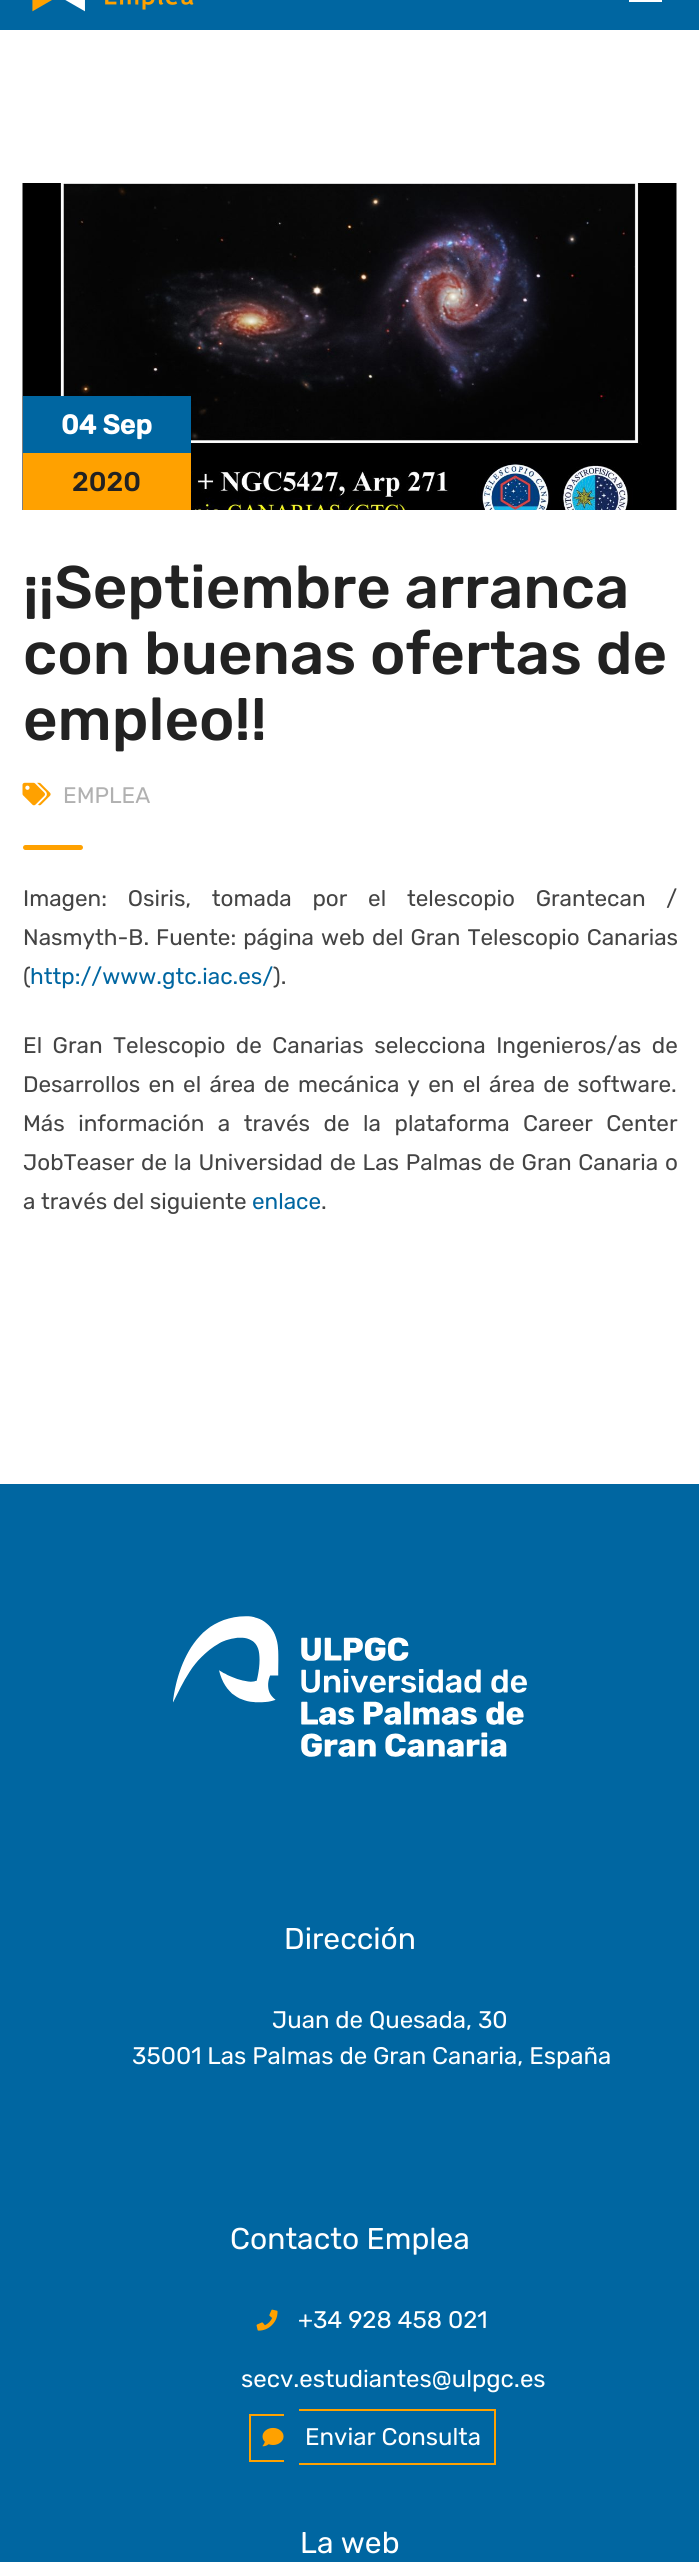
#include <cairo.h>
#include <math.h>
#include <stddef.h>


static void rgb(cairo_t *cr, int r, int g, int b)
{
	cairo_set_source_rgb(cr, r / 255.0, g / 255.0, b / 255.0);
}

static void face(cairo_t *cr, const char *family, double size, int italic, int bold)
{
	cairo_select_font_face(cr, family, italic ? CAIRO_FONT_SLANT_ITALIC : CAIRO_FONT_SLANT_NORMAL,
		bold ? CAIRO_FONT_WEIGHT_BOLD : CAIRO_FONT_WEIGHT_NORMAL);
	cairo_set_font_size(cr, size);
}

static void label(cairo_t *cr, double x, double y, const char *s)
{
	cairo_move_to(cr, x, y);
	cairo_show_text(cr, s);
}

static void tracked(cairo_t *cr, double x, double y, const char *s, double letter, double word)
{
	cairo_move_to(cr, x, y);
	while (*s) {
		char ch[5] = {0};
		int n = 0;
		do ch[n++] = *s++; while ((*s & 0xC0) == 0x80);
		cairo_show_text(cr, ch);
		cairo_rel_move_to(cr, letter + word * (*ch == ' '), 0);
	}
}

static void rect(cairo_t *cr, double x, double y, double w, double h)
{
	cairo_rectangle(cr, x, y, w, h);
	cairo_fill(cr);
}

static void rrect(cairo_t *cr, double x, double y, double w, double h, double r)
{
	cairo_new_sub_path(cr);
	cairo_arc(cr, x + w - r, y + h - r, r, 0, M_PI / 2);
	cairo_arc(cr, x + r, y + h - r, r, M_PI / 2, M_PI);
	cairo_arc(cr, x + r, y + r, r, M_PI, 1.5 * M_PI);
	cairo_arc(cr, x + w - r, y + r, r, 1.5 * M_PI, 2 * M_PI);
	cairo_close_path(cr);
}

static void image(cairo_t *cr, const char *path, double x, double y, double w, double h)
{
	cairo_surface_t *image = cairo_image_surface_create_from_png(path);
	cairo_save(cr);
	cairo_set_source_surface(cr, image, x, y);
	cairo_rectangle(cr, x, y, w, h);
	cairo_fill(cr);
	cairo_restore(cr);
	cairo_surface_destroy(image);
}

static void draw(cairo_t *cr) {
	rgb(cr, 255, 255, 255);
	cairo_paint(cr);
	rgb(cr, 0, 102, 161);
	rect(cr, 0, 0, 699, 30);
	image(cr, "image0.png", 32, 0, 162, 12);
	rgb(cr, 255, 255, 255);
	rect(cr, 629, 0, 33, 2);
	image(cr, "image1.png", 22, 183, 655, 327);
	rgb(cr, 0, 102, 161);
	rect(cr, 23, 396, 168, 57);
	face(cr, "Rubik", 27, 0, 1);
	rgb(cr, 255, 255, 255);
	label(cr, 61, 434, "04 Sep");
	rgb(cr, 255, 161, 0);
	rect(cr, 23, 453, 168, 57);
	face(cr, "Rubik Medium", 27, 0, 0);
	rgb(cr, 34, 34, 34);
	label(cr, 72, 491, "2020");
	face(cr, "Rubik Medium", 60, 0, 0);
	label(cr, 23, 608, "¡¡Septiembre arranca");
	label(cr, 23, 674, "con buenas ofertas de");
	label(cr, 23, 740, "empleo!!");
	image(cr, "image2.png", 22, 782, 29, 24);
	face(cr, "Rubik", 22.5, 0, 0);
	rgb(cr, 177, 177, 177);
	label(cr, 63, 803, "EMPLEA");
	rgb(cr, 255, 161, 0);
	rrect(cr, 23, 845, 60, 5, 2.5);
	cairo_fill(cr);
	rgb(cr, 68, 68, 68);
	tracked(cr, 23, 906, "Imagen: Osiris, tomada por el telescopio Grantecan /", 0, 15.25);
	tracked(cr, 23, 945, "Nasmyth-B. Fuente: página web del Gran Telescopio Canarias", 0, 1.5);
	label(cr, 23, 984, "(");
	rgb(cr, 0, 102, 161);
	label(cr, 30, 984, "http://www.gtc.iac.es/");
	rgb(cr, 68, 68, 68);
	label(cr, 273, 984, ").");
	tracked(cr, 23, 1053, "El Gran Telescopio de Canarias selecciona Ingenieros/as de", 0, 5);
	tracked(cr, 23, 1092, "Desarrollos en el área de mecánica y en el área de software.", 0, 2.75);
	tracked(cr, 23, 1131, "Más información a través de la plataforma Career Center", 0, 8);
	tracked(cr, 23, 1170, "JobTeaser de la Universidad de Las Palmas de Gran Canaria o", 0, 1.25);
	label(cr, 23, 1209, "a través del siguiente");
	rgb(cr, 0, 102, 161);
	label(cr, 252, 1209, "enlace");
	rgb(cr, 68, 68, 68);
	label(cr, 321, 1209, ".");
	rgb(cr, 0, 102, 161);
	rect(cr, 0, 1484, 699, 1078);
	image(cr, "image3.png", 173, 1616, 354, 141);
	face(cr, "Rubik", 30, 0, 0);
	rgb(cr, 255, 255, 255);
	label(cr, 284, 1949, "Dirección");
	face(cr, "Rubik", 24, 0, 0);
	label(cr, 272, 2028, "Juan de Quesada, 30");
	label(cr, 132, 2064, "35001 Las Palmas de Gran Canaria, España");
	face(cr, "Rubik", 30, 0, 0);
	label(cr, 230, 2249, "Contacto Emplea");
	image(cr, "image4.png", 256, 2309, 22, 22);
	face(cr, "Rubik", 24, 0, 0);
	label(cr, 298, 2328, "+34 928 458 021");
	label(cr, 241, 2387, "secv.estudiantes@ulpgc.es");
	rgb(cr, 255, 161, 0);
	rect(cr, 249, 2414, 35, 2);
	rect(cr, 249, 2460, 35, 2);
	rect(cr, 249, 2414, 2, 48);
	rect(cr, 299, 2409, 196, 2);
	rect(cr, 494, 2409, 2, 56);
	rect(cr, 299, 2463, 196, 2);
	image(cr, "image5.png", 262, 2427, 22, 20);
	rgb(cr, 255, 255, 255);
	label(cr, 305, 2445, "Enviar Consulta");
	face(cr, "Rubik", 30, 0, 0);
	label(cr, 300, 2553, "La web");
}

int main(void) {
	cairo_surface_t *surface = cairo_image_surface_create(CAIRO_FORMAT_RGB24, 699, 2562);
	cairo_t *cr = cairo_create(surface);
	cairo_font_options_t *options = cairo_font_options_create();
	cairo_font_options_set_hint_metrics(options, CAIRO_HINT_METRICS_OFF);
	cairo_font_options_set_hint_style(options, CAIRO_HINT_STYLE_NONE);
	cairo_set_font_options(cr, options);
	cairo_set_miter_limit(cr, 4);
	draw(cr);
	cairo_surface_write_to_png(surface, "render.png");
	cairo_font_options_destroy(options);
	cairo_destroy(cr);
	cairo_surface_destroy(surface);
	return 0;
}
